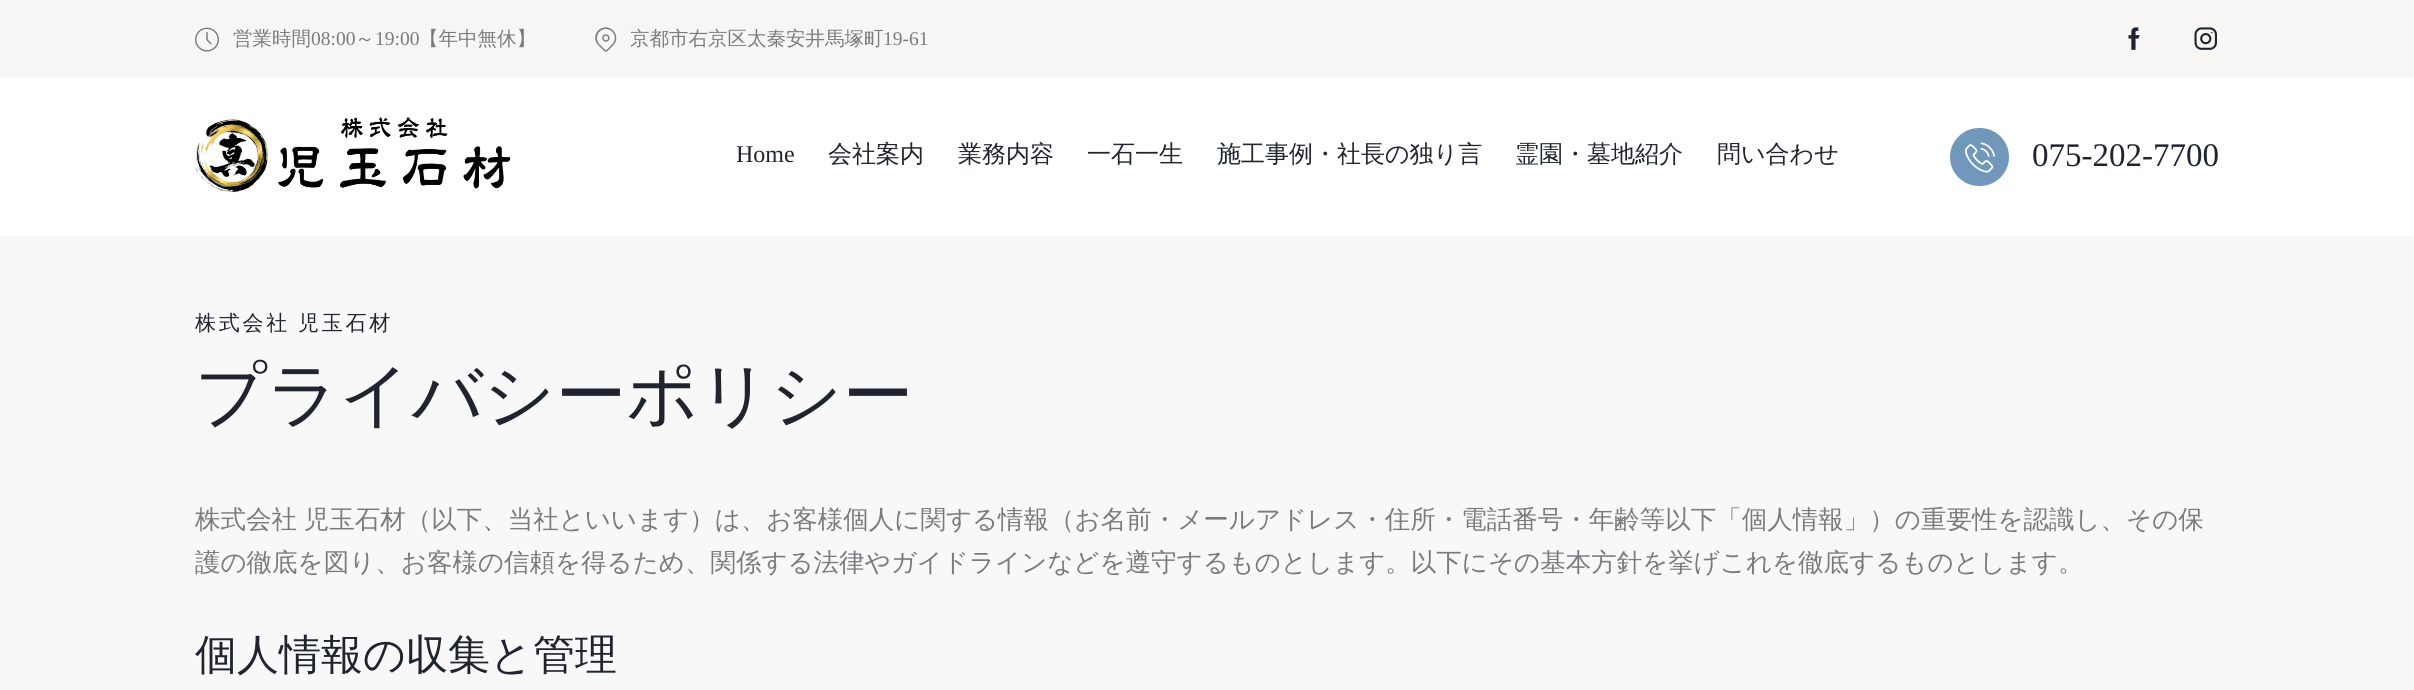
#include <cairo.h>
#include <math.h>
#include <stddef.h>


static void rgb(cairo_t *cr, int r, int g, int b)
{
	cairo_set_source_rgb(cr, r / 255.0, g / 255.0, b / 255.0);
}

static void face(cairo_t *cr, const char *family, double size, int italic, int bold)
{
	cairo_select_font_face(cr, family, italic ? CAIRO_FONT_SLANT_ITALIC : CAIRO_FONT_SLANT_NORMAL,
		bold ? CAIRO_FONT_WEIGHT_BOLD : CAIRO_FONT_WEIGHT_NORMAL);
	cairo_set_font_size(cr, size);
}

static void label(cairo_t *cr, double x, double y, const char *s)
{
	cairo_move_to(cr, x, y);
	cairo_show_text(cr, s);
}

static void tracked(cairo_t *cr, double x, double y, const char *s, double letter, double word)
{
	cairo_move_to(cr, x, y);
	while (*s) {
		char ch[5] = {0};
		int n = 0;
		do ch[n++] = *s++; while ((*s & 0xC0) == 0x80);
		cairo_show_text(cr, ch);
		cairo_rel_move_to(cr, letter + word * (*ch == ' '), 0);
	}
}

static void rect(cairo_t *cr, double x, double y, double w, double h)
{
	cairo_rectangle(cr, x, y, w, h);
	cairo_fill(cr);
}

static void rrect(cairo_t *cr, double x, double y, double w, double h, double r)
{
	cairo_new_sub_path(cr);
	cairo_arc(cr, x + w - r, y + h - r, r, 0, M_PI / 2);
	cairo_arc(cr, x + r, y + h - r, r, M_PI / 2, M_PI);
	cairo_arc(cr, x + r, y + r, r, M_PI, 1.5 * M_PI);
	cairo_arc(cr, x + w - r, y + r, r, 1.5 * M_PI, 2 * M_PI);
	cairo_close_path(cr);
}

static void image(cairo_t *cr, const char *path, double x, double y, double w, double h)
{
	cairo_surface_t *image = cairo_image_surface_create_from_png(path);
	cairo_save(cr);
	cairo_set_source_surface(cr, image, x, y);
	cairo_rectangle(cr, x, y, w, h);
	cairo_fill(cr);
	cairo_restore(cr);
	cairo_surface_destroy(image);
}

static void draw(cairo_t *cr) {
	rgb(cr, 248, 248, 248);
	cairo_paint(cr);
	rgb(cr, 247, 246, 244);
	rect(cr, 0, 0, 2414, 77);
	image(cr, "image0.png", 195, 27, 24, 25);
	face(cr, "WenQuanYi Zen Hei Medium", 19.5, 0, 0);
	rgb(cr, 121, 124, 127);
	label(cr, 233, 45, "営業時間");
	face(cr, "Liberation Serif", 19.5, 0, 0);
	label(cr, 311, 45, "08:00");
	face(cr, "WenQuanYi Zen Hei Medium", 19.5, 0, 0);
	label(cr, 355, 45, "～");
	face(cr, "Liberation Serif", 19.5, 0, 0);
	label(cr, 375, 45, "19:00");
	face(cr, "WenQuanYi Zen Hei Medium", 19.5, 0, 0);
	label(cr, 419, 45, "【年中無休】");
	image(cr, "image1.png", 595, 27, 22, 25);
	label(cr, 630, 45, "京都市右京区太秦安井馬塚町");
	face(cr, "Liberation Serif", 19.5, 0, 0);
	label(cr, 883, 45, "19-61");
	image(cr, "image2.png", 2128, 27, 12, 23);
	image(cr, "image3.png", 2194, 27, 23, 23);
	rgb(cr, 255, 255, 255);
	rect(cr, 0, 77, 2414, 159);
	image(cr, "image4.png", 195, 117, 316, 76);
	face(cr, "Liberation Serif", 24, 0, 0);
	rgb(cr, 31, 36, 46);
	label(cr, 736, 162, "Home");
	face(cr, "WenQuanYi Zen Hei Medium", 24, 0, 0);
	label(cr, 828, 162, "会社案内");
	label(cr, 958, 162, "業務内容");
	label(cr, 1087, 162, "一石一生");
	label(cr, 1217, 162, "施工事例・社長の独り言");
	label(cr, 1515, 162, "霊園・墓地紹介");
	label(cr, 1717, 162, "問い合わせ");
	rgb(cr, 113, 152, 186);
	rrect(cr, 1950, 128, 59, 58, 29);
	cairo_fill(cr);
	image(cr, "image5.png", 1965, 142, 30, 31);
	face(cr, "Liberation Serif", 33, 0, 0);
	rgb(cr, 31, 36, 46);
	label(cr, 2032, 166, "075-202-7700");
	face(cr, "WenQuanYi Zen Hei Medium", 21, 0, 0);
	tracked(cr, 195, 330, "株式会社 児玉石材", 2.75, -1);
	face(cr, "WenQuanYi Zen Hei Medium", 70.5, 0, 0);
	label(cr, 195, 419, "プライバシーポリシー");
	face(cr, "WenQuanYi Zen Hei Medium", 25.5, 0, 0);
	rgb(cr, 121, 124, 127);
	tracked(cr, 195, 528, "株式会社 児玉石材（以下、当社といいます）は、お客様個人に関する情報（お名前・メールアドレス・住所・電話番号・年齢等以下「個人情報」）の重要性を認識し、その保", 0, -1);
	label(cr, 195, 571, "護の徹底を図り、お客様の信頼を得るため、関係する法律やガイドラインなどを遵守するものとします。以下にその基本方針を挙げこれを徹底するものとします。");
	face(cr, "WenQuanYi Zen Hei Medium", 42, 0, 0);
	rgb(cr, 31, 36, 46);
	label(cr, 195, 669, "個人情報の収集と管理");
}

int main(void) {
	cairo_surface_t *surface = cairo_image_surface_create(CAIRO_FORMAT_RGB24, 2414, 690);
	cairo_t *cr = cairo_create(surface);
	cairo_font_options_t *options = cairo_font_options_create();
	cairo_font_options_set_hint_metrics(options, CAIRO_HINT_METRICS_OFF);
	cairo_font_options_set_hint_style(options, CAIRO_HINT_STYLE_NONE);
	cairo_set_font_options(cr, options);
	cairo_set_miter_limit(cr, 4);
	draw(cr);
	cairo_surface_write_to_png(surface, "render.png");
	cairo_font_options_destroy(options);
	cairo_destroy(cr);
	cairo_surface_destroy(surface);
	return 0;
}
